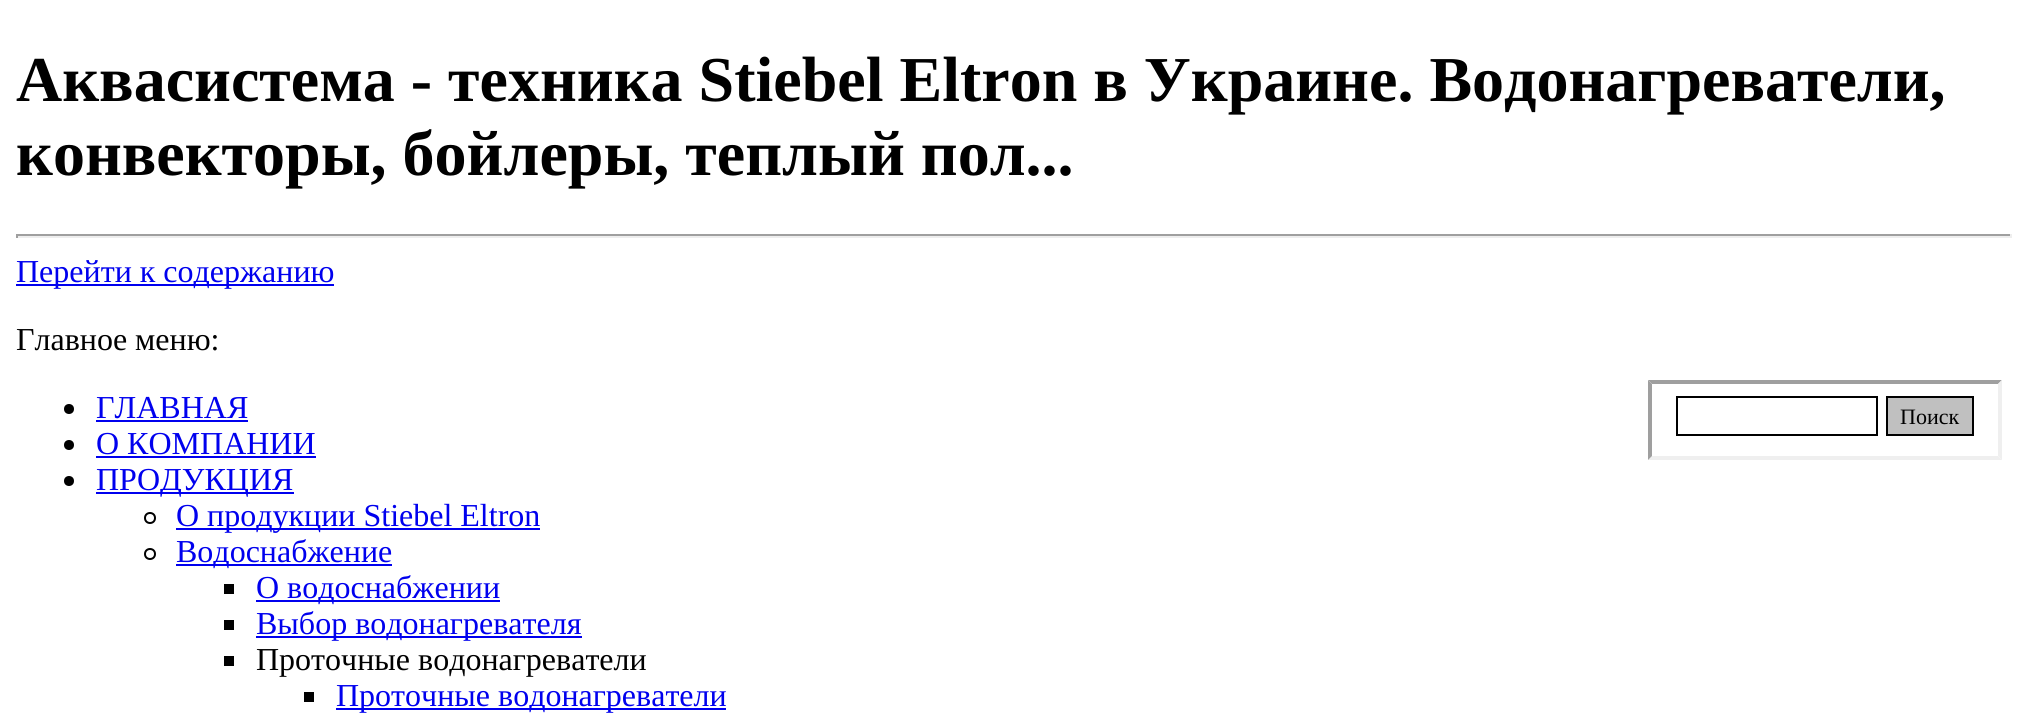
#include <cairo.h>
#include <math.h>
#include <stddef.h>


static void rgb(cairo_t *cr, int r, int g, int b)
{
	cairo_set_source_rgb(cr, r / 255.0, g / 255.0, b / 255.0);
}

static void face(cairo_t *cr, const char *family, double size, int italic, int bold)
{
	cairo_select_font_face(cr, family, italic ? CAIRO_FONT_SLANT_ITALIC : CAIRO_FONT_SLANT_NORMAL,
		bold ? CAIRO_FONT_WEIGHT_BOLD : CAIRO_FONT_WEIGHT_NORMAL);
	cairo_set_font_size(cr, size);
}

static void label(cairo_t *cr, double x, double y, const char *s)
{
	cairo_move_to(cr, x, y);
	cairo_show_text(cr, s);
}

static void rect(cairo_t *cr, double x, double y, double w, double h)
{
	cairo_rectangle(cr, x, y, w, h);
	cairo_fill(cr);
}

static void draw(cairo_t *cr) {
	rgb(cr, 255, 255, 255);
	cairo_paint(cr);
	face(cr, "Liberation Serif", 64, 0, 1);
	rgb(cr, 0, 0, 0);
	label(cr, 16, 101, "Аквасистема - техника Stiebel Eltron в Украине. Водонагреватели,");
	label(cr, 16, 175, "конвекторы, бойлеры, теплый пол...");
	rgb(cr, 159, 159, 159);
	cairo_new_path(cr);
	cairo_move_to(cr, 1648, 380);
	cairo_line_to(cr, 2002, 380);
	cairo_line_to(cr, 1998, 384);
	cairo_line_to(cr, 1652, 384);
	cairo_close_path(cr);
	cairo_fill(cr);
	rgb(cr, 239, 239, 239);
	cairo_new_path(cr);
	cairo_move_to(cr, 2002, 380);
	cairo_line_to(cr, 2002, 460);
	cairo_line_to(cr, 1998, 456);
	cairo_line_to(cr, 1998, 384);
	cairo_close_path(cr);
	cairo_fill(cr);
	cairo_new_path(cr);
	cairo_move_to(cr, 2002, 460);
	cairo_line_to(cr, 1648, 460);
	cairo_line_to(cr, 1652, 456);
	cairo_line_to(cr, 1998, 456);
	cairo_close_path(cr);
	cairo_fill(cr);
	rgb(cr, 159, 159, 159);
	cairo_new_path(cr);
	cairo_move_to(cr, 1648, 460);
	cairo_line_to(cr, 1648, 380);
	cairo_line_to(cr, 1652, 384);
	cairo_line_to(cr, 1652, 456);
	cairo_close_path(cr);
	cairo_fill(cr);
	cairo_rectangle(cr, 1677, 397, 200, 38);
	rgb(cr, 0, 0, 0);
	cairo_stroke(cr);
	rgb(cr, 192, 192, 192);
	cairo_rectangle(cr, 1887, 397, 86, 38);
	cairo_fill_preserve(cr);
	rgb(cr, 0, 0, 0);
	cairo_stroke(cr);
	face(cr, "Liberation Serif", 22, 0, 0);
	label(cr, 1900, 424, "Поиск");
	rgb(cr, 159, 159, 159);
	rect(cr, 16, 234, 1996, 2);
	rgb(cr, 238, 238, 238);
	rect(cr, 2010, 234, 2, 4);
	rect(cr, 16, 236, 1996, 2);
	rgb(cr, 159, 159, 159);
	rect(cr, 16, 234, 2, 4);
	rgb(cr, 0, 0, 238);
	rect(cr, 16, 284, 318, 2);
	face(cr, "Liberation Serif", 32, 0, 0);
	label(cr, 16, 282, "Перейти к содержанию");
	rgb(cr, 0, 0, 0);
	label(cr, 16, 350, "Главное меню:");
	cairo_new_path(cr);
	cairo_arc(cr, 69, 409, 5, 0, 2 * M_PI);
	cairo_fill(cr);
	rgb(cr, 0, 0, 238);
	label(cr, 96, 418, "ГЛАВНАЯ");
	rect(cr, 96, 420, 152, 2);
	rgb(cr, 0, 0, 0);
	cairo_new_path(cr);
	cairo_arc(cr, 69, 445, 5, 0, 2 * M_PI);
	cairo_fill(cr);
	rgb(cr, 0, 0, 238);
	label(cr, 96, 454, "О КОМПАНИИ");
	rect(cr, 96, 456, 220, 2);
	rgb(cr, 0, 0, 0);
	cairo_new_path(cr);
	cairo_arc(cr, 69, 481, 5, 0, 2 * M_PI);
	cairo_fill(cr);
	rgb(cr, 0, 0, 238);
	rect(cr, 96, 492, 198, 2);
	label(cr, 96, 490, "ПРОДУКЦИЯ");
	cairo_new_path(cr);
	cairo_arc(cr, 150, 518, 5, 0, 2 * M_PI);
	rgb(cr, 0, 0, 0);
	cairo_stroke(cr);
	rgb(cr, 0, 0, 238);
	rect(cr, 176, 528, 364, 2);
	label(cr, 176, 526, "О продукции Stiebel Eltron");
	cairo_new_path(cr);
	cairo_arc(cr, 150, 554, 5, 0, 2 * M_PI);
	rgb(cr, 0, 0, 0);
	cairo_stroke(cr);
	rgb(cr, 0, 0, 238);
	rect(cr, 176, 564, 216, 2);
	label(cr, 176, 562, "Водоснабжение");
	rgb(cr, 0, 0, 0);
	rect(cr, 224, 584, 10, 10);
	rgb(cr, 0, 0, 238);
	rect(cr, 256, 600, 244, 2);
	label(cr, 256, 598, "О водоснабжении");
	rgb(cr, 0, 0, 0);
	rect(cr, 224, 620, 10, 10);
	rgb(cr, 0, 0, 238);
	rect(cr, 256, 636, 326, 2);
	label(cr, 256, 634, "Выбор водонагревателя");
	rgb(cr, 0, 0, 0);
	rect(cr, 224, 656, 10, 10);
	label(cr, 256, 670, "Проточные водонагреватели");
	rect(cr, 304, 692, 10, 10);
	rgb(cr, 0, 0, 238);
	rect(cr, 336, 708, 390, 2);
	label(cr, 336, 706, "Проточные водонагреватели");
}

int main(void) {
	cairo_surface_t *surface = cairo_image_surface_create(CAIRO_FORMAT_RGB24, 2028, 719);
	cairo_t *cr = cairo_create(surface);
	cairo_font_options_t *options = cairo_font_options_create();
	cairo_font_options_set_hint_metrics(options, CAIRO_HINT_METRICS_OFF);
	cairo_font_options_set_hint_style(options, CAIRO_HINT_STYLE_NONE);
	cairo_set_font_options(cr, options);
	cairo_set_miter_limit(cr, 4);
	draw(cr);
	cairo_surface_write_to_png(surface, "render.png");
	cairo_font_options_destroy(options);
	cairo_destroy(cr);
	cairo_surface_destroy(surface);
	return 0;
}
